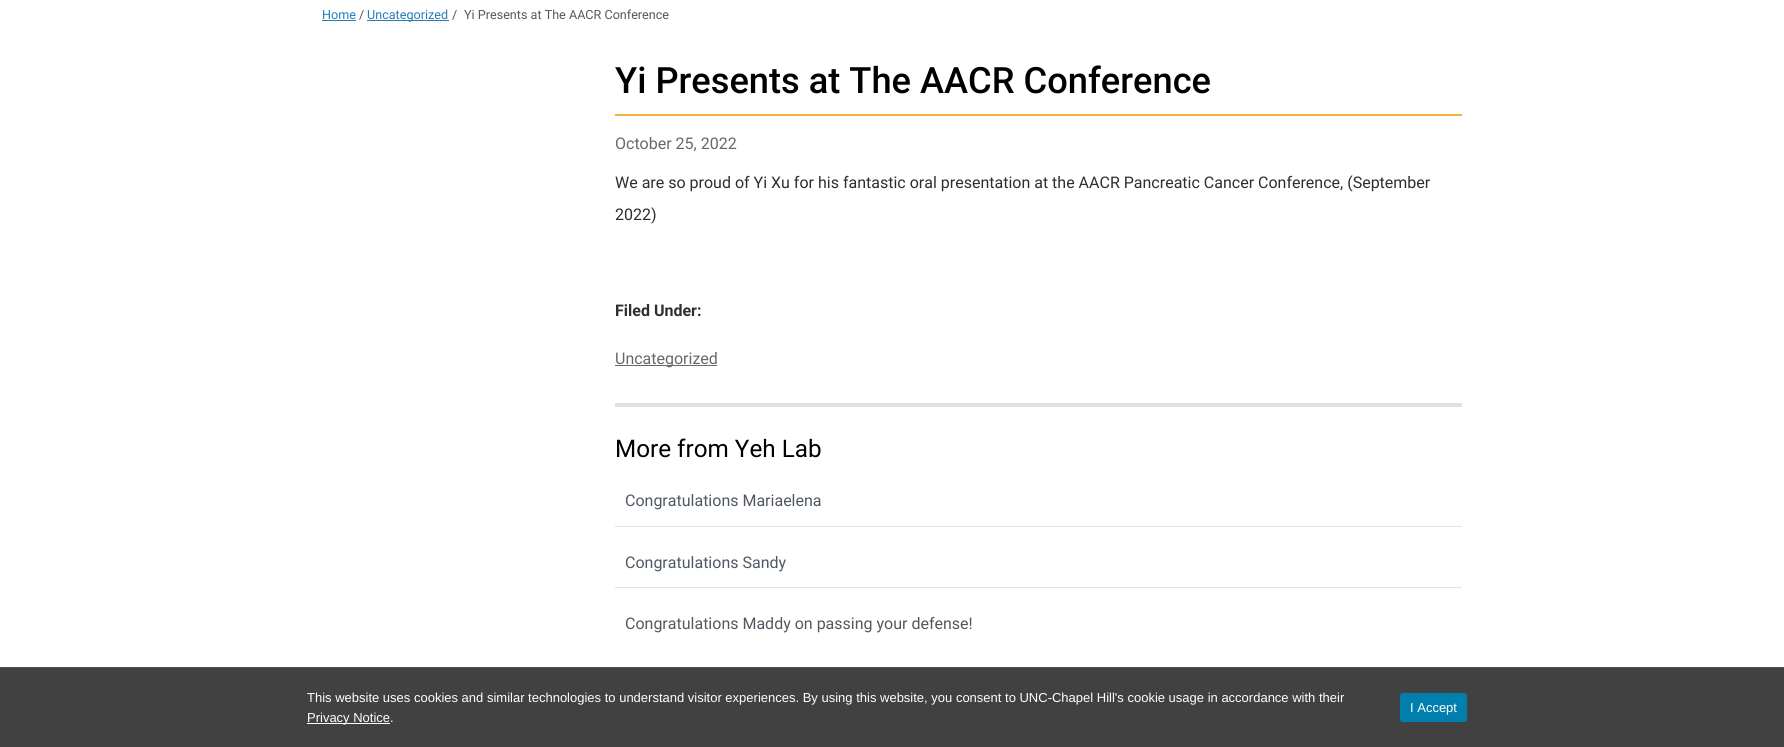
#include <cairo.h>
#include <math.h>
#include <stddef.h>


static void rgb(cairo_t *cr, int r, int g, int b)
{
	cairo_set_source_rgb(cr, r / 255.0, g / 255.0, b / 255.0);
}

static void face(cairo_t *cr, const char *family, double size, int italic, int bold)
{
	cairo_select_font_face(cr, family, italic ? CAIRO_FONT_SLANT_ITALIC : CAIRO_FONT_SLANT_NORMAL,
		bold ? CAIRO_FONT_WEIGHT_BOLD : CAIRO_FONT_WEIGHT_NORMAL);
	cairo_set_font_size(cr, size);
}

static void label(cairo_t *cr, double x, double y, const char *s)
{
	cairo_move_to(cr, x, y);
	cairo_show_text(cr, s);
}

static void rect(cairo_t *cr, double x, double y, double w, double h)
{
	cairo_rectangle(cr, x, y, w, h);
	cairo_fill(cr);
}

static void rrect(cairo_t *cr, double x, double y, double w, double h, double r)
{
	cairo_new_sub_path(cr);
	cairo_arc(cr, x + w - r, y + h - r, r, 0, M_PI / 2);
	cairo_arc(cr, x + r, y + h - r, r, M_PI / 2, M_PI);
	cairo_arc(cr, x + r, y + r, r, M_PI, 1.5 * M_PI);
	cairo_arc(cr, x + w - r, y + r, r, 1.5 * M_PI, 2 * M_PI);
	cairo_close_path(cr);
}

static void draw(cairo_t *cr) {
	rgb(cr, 255, 255, 255);
	cairo_paint(cr);
	face(cr, "Roboto", 12.6, 0, 0);
	rgb(cr, 37, 124, 183);
	label(cr, 322, 19, "Home");
	rect(cr, 322, 20, 34, 1);
	rgb(cr, 79, 79, 79);
	label(cr, 359, 19, "/");
	rgb(cr, 37, 124, 183);
	rect(cr, 367, 20, 82, 1);
	label(cr, 367, 19, "Uncategorized");
	rgb(cr, 79, 79, 79);
	label(cr, 452, 19, "/");
	rgb(cr, 80, 89, 98);
	label(cr, 464, 19, "Yi Presents at The AACR Conference");
	rgb(cr, 251, 175, 65);
	rect(cr, 615, 114, 847, 2);
	face(cr, "Roboto Medium", 36.25, 0, 0);
	rgb(cr, 0, 0, 0);
	label(cr, 615, 93, "Yi Presents at The AACR Conference");
	face(cr, "Roboto", 16, 0, 0);
	rgb(cr, 104, 104, 104);
	label(cr, 615, 149, "October 25, 2022");
	rgb(cr, 46, 46, 46);
	label(cr, 615, 188, "We are so proud of Yi Xu for his fantastic oral presentation at the AACR Pancreatic Cancer Conference, (September");
	label(cr, 615, 220, "2022)");
	face(cr, "Roboto", 16, 0, 1);
	label(cr, 615, 316, "Filed Under:");
	rgb(cr, 104, 104, 104);
	rect(cr, 615, 365, 102, 1);
	face(cr, "Roboto", 16, 0, 0);
	label(cr, 615, 364, "Uncategorized");
	rgb(cr, 225, 225, 225);
	rect(cr, 615, 403, 847, 4);
	face(cr, "Roboto", 24.25, 0, 0);
	rgb(cr, 0, 0, 0);
	label(cr, 615, 457, "More from Yeh Lab");
	rgb(cr, 225, 225, 225);
	rect(cr, 615, 526, 847, 1);
	face(cr, "Roboto", 16, 0, 0);
	rgb(cr, 80, 89, 98);
	label(cr, 625, 506, "Congratulations Mariaelena");
	rgb(cr, 225, 225, 225);
	rect(cr, 615, 587, 847, 1);
	rgb(cr, 80, 89, 98);
	label(cr, 625, 568, "Congratulations Sandy");
	label(cr, 625, 629, "Congratulations Maddy on passing your defense!");
	rgb(cr, 65, 65, 65);
	rect(cr, 0, 668, 1784, 79);
	rgb(cr, 81, 81, 81);
	rect(cr, 0, 667, 1784, 1);
	face(cr, "Liberation Sans", 13, 0, 0);
	rgb(cr, 255, 255, 255);
	label(cr, 307, 702, "This website uses cookies and similar technologies to understand visitor experiences. By using this website, you consent to UNC-Chapel Hill's cookie usage in accordance with their");
	rect(cr, 307, 723, 83, 1);
	label(cr, 307, 722, "Privacy Notice.");
	rgb(cr, 0, 127, 174);
	rrect(cr, 1400, 693, 67, 29, 3);
	cairo_fill(cr);
	rgb(cr, 255, 255, 255);
	label(cr, 1410, 712, "I Accept");
}

int main(void) {
	cairo_surface_t *surface = cairo_image_surface_create(CAIRO_FORMAT_RGB24, 1784, 747);
	cairo_t *cr = cairo_create(surface);
	cairo_font_options_t *options = cairo_font_options_create();
	cairo_font_options_set_hint_metrics(options, CAIRO_HINT_METRICS_OFF);
	cairo_font_options_set_hint_style(options, CAIRO_HINT_STYLE_NONE);
	cairo_set_font_options(cr, options);
	cairo_set_miter_limit(cr, 4);
	draw(cr);
	cairo_surface_write_to_png(surface, "render.png");
	cairo_font_options_destroy(options);
	cairo_destroy(cr);
	cairo_surface_destroy(surface);
	return 0;
}
